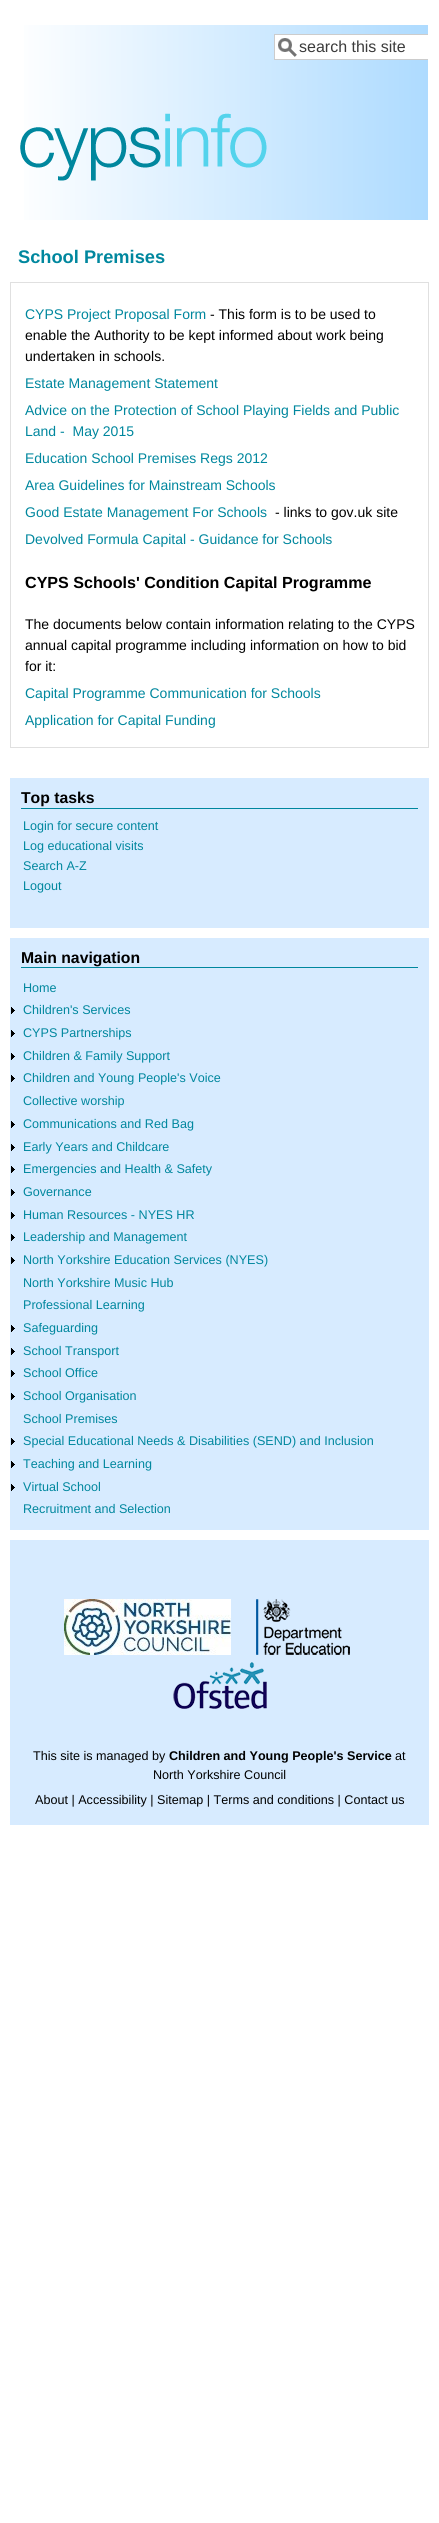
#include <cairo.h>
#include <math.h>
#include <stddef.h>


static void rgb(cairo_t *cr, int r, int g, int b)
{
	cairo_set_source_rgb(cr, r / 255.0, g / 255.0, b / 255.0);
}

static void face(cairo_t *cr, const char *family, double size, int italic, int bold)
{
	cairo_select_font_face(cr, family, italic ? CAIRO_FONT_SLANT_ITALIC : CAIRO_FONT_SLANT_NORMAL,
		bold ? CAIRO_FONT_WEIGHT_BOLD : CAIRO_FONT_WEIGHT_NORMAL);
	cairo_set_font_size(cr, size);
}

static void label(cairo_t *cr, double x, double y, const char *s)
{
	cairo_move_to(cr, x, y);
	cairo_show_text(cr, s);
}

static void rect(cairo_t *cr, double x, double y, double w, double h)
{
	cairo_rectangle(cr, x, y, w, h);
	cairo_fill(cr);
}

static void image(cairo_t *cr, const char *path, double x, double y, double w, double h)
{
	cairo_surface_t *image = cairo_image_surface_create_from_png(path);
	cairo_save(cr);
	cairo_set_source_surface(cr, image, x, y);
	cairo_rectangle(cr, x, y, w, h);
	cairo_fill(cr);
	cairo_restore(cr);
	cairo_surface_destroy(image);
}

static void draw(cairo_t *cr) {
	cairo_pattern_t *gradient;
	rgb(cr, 255, 255, 255);
	cairo_paint(cr);
	gradient = cairo_pattern_create_linear(11, 123, 428, 122);
	cairo_pattern_add_color_stop_rgba(gradient, 0, 1, 1, 1, 1);
	cairo_pattern_add_color_stop_rgba(gradient, 1, 0.682, 0.859, 1, 1);
	cairo_set_source(cr, gradient);
	cairo_pattern_destroy(gradient);
	rect(cr, 24, 25, 404, 195);
	rgb(cr, 255, 255, 255);
	rect(cr, 275, 35, 153, 24);
	image(cr, "image0.png", 278, 38, 19, 19);
	cairo_save(cr);
	cairo_rectangle(cr, 266, 25, 162, 53);
	cairo_clip(cr);
	cairo_rectangle(cr, 274.5, 34.5, 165, 25);
	rgb(cr, 204, 204, 204);
	cairo_set_line_width(cr, 1);
	cairo_stroke(cr);
	cairo_restore(cr);
	face(cr, "Liberation Sans", 16, 0, 0);
	rgb(cr, 59, 59, 59);
	label(cr, 299, 52, "search this site");
	image(cr, "image1.png", 20, 113, 247, 68);
	face(cr, "Liberation Sans", 18.25, 0, 1);
	rgb(cr, 0, 135, 158);
	label(cr, 18, 263, "School Premises");
	cairo_rectangle(cr, 10.5, 282.5, 418, 465);
	rgb(cr, 224, 224, 224);
	cairo_set_line_width(cr, 1);
	cairo_stroke(cr);
	face(cr, "Liberation Sans", 14, 0, 0);
	rgb(cr, 0, 135, 158);
	label(cr, 25, 319, "CYPS Project Proposal Form");
	rgb(cr, 0, 0, 0);
	label(cr, 210, 319, "- This form is to be used to");
	label(cr, 25, 340, "enable the Authority to be kept informed about work being");
	label(cr, 25, 361, "undertaken in schools.");
	rgb(cr, 0, 135, 158);
	label(cr, 25, 388, "Estate Management Statement");
	label(cr, 25, 415, "Advice on the Protection of School Playing Fields and Public");
	label(cr, 25, 436, "Land -  May 2015");
	label(cr, 25, 463, "Education School Premises Regs 2012");
	label(cr, 25, 490, "Area Guidelines for Mainstream Schools");
	label(cr, 25, 517, "Good Estate Management For Schools");
	rgb(cr, 0, 0, 0);
	label(cr, 275, 517, "- links to gov.uk site");
	rgb(cr, 0, 135, 158);
	label(cr, 25, 544, "Devolved Formula Capital - Guidance for Schools");
	face(cr, "Liberation Sans", 16.1, 0, 1);
	rgb(cr, 0, 0, 0);
	label(cr, 25, 588, "CYPS Schools' Condition Capital Programme");
	face(cr, "Liberation Sans", 14, 0, 0);
	label(cr, 25, 629, "The documents below contain information relating to the CYPS");
	label(cr, 25, 650, "annual capital programme including information on how to bid");
	label(cr, 25, 671, "for it:");
	rgb(cr, 0, 135, 158);
	label(cr, 25, 698, "Capital Programme Communication for Schools");
	label(cr, 25, 725, "Application for Capital Funding");
	rgb(cr, 215, 235, 255);
	rect(cr, 10, 778, 419, 150);
	rgb(cr, 0, 135, 158);
	rect(cr, 21, 808, 397, 1);
	face(cr, "Liberation Sans", 15.75, 0, 1);
	rgb(cr, 0, 0, 0);
	label(cr, 21, 803, "Top tasks");
	face(cr, "Liberation Sans", 12.6, 0, 0);
	rgb(cr, 0, 135, 158);
	label(cr, 23, 830, "Login for secure content");
	label(cr, 23, 850, "Log educational visits");
	label(cr, 23, 870, "Search A-Z");
	label(cr, 23, 890, "Logout");
	rgb(cr, 215, 235, 255);
	rect(cr, 10, 938, 419, 592);
	rgb(cr, 0, 135, 158);
	rect(cr, 21, 967, 397, 1);
	face(cr, "Liberation Sans", 15.75, 0, 1);
	rgb(cr, 0, 0, 0);
	label(cr, 21, 963, "Main navigation");
	face(cr, "Liberation Sans", 12.6, 0, 0);
	rgb(cr, 0, 135, 158);
	label(cr, 23, 992, "Home");
	image(cr, "image2.png", 11, 1007, 4, 7);
	label(cr, 23, 1014, "Children's Services");
	image(cr, "image2.png", 11, 1030, 4, 7);
	label(cr, 23, 1037, "CYPS Partnerships");
	image(cr, "image2.png", 11, 1053, 4, 7);
	label(cr, 23, 1060, "Children & Family Support");
	image(cr, "image2.png", 11, 1075, 4, 7);
	label(cr, 23, 1082, "Children and Young People's Voice");
	label(cr, 23, 1105, "Collective worship");
	image(cr, "image2.png", 11, 1121, 4, 7);
	label(cr, 23, 1128, "Communications and Red Bag");
	image(cr, "image2.png", 11, 1144, 4, 7);
	label(cr, 23, 1151, "Early Years and Childcare");
	image(cr, "image2.png", 11, 1166, 4, 7);
	label(cr, 23, 1173, "Emergencies and Health & Safety");
	image(cr, "image2.png", 11, 1189, 4, 7);
	label(cr, 23, 1196, "Governance");
	image(cr, "image2.png", 11, 1212, 4, 7);
	label(cr, 23, 1219, "Human Resources - NYES HR");
	image(cr, "image2.png", 11, 1234, 4, 7);
	label(cr, 23, 1241, "Leadership and Management");
	image(cr, "image2.png", 11, 1257, 4, 7);
	label(cr, 23, 1264, "North Yorkshire Education Services (NYES)");
	label(cr, 23, 1287, "North Yorkshire Music Hub");
	label(cr, 23, 1309, "Professional Learning");
	image(cr, "image2.png", 11, 1325, 4, 7);
	label(cr, 23, 1332, "Safeguarding");
	image(cr, "image2.png", 11, 1348, 4, 7);
	label(cr, 23, 1355, "School Transport");
	image(cr, "image2.png", 11, 1370, 4, 7);
	label(cr, 23, 1377, "School Office");
	image(cr, "image2.png", 11, 1393, 4, 7);
	label(cr, 23, 1400, "School Organisation");
	label(cr, 23, 1423, "School Premises");
	image(cr, "image2.png", 11, 1438, 4, 7);
	label(cr, 23, 1445, "Special Educational Needs & Disabilities (SEND) and Inclusion");
	image(cr, "image2.png", 11, 1461, 4, 7);
	label(cr, 23, 1468, "Teaching and Learning");
	image(cr, "image2.png", 11, 1484, 4, 7);
	label(cr, 23, 1491, "Virtual School");
	label(cr, 23, 1513, "Recruitment and Selection");
	rgb(cr, 215, 235, 255);
	rect(cr, 10, 1540, 419, 285);
	image(cr, "image3.png", 64, 1599, 167, 56);
	image(cr, "image4.png", 256, 1599, 94, 56);
	image(cr, "image5.png", 173, 1662, 94, 47);
	rgb(cr, 0, 0, 0);
	label(cr, 33, 1760, "This site is managed by");
	face(cr, "Liberation Sans", 12.6, 0, 1);
	label(cr, 169, 1760, "Children and Young People's Service");
	face(cr, "Liberation Sans", 12.6, 0, 0);
	label(cr, 395, 1760, "at");
	label(cr, 153, 1779, "North Yorkshire Council");
	label(cr, 35, 1804, "About | Accessibility | Sitemap | Terms and conditions | Contact us");
}

int main(void) {
	cairo_surface_t *surface = cairo_image_surface_create(CAIRO_FORMAT_RGB24, 439, 2523);
	cairo_t *cr = cairo_create(surface);
	cairo_font_options_t *options = cairo_font_options_create();
	cairo_font_options_set_hint_metrics(options, CAIRO_HINT_METRICS_OFF);
	cairo_font_options_set_hint_style(options, CAIRO_HINT_STYLE_NONE);
	cairo_set_font_options(cr, options);
	cairo_set_miter_limit(cr, 4);
	draw(cr);
	cairo_surface_write_to_png(surface, "render.png");
	cairo_font_options_destroy(options);
	cairo_destroy(cr);
	cairo_surface_destroy(surface);
	return 0;
}
